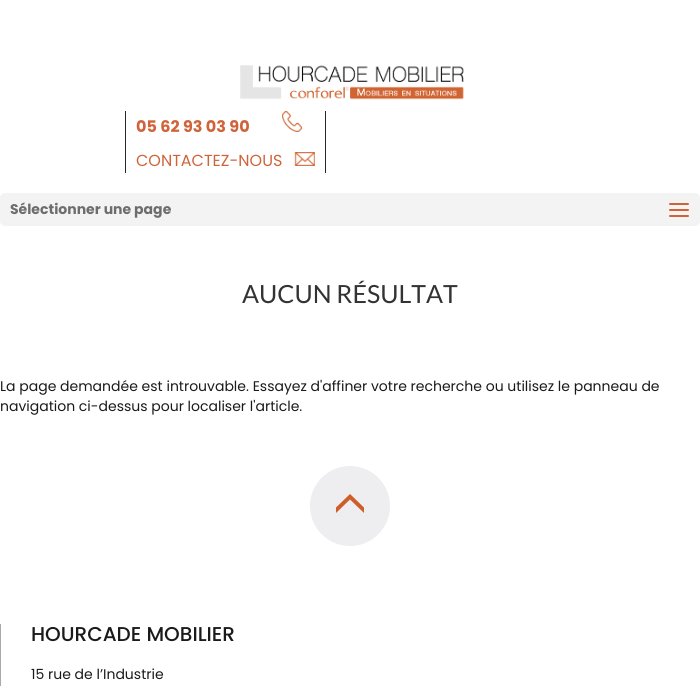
#include <cairo.h>
#include <math.h>
#include <stddef.h>


static void rgb(cairo_t *cr, int r, int g, int b)
{
	cairo_set_source_rgb(cr, r / 255.0, g / 255.0, b / 255.0);
}

static void face(cairo_t *cr, const char *family, double size, int italic, int bold)
{
	cairo_select_font_face(cr, family, italic ? CAIRO_FONT_SLANT_ITALIC : CAIRO_FONT_SLANT_NORMAL,
		bold ? CAIRO_FONT_WEIGHT_BOLD : CAIRO_FONT_WEIGHT_NORMAL);
	cairo_set_font_size(cr, size);
}

static void label(cairo_t *cr, double x, double y, const char *s)
{
	cairo_move_to(cr, x, y);
	cairo_show_text(cr, s);
}

static void rect(cairo_t *cr, double x, double y, double w, double h)
{
	cairo_rectangle(cr, x, y, w, h);
	cairo_fill(cr);
}

static void rrect(cairo_t *cr, double x, double y, double w, double h, double r)
{
	cairo_new_sub_path(cr);
	cairo_arc(cr, x + w - r, y + h - r, r, 0, M_PI / 2);
	cairo_arc(cr, x + r, y + h - r, r, M_PI / 2, M_PI);
	cairo_arc(cr, x + r, y + r, r, M_PI, 1.5 * M_PI);
	cairo_arc(cr, x + w - r, y + r, r, 1.5 * M_PI, 2 * M_PI);
	cairo_close_path(cr);
}

static void image(cairo_t *cr, const char *path, double x, double y, double w, double h)
{
	cairo_surface_t *image = cairo_image_surface_create_from_png(path);
	cairo_save(cr);
	cairo_set_source_surface(cr, image, x, y);
	cairo_rectangle(cr, x, y, w, h);
	cairo_fill(cr);
	cairo_restore(cr);
	cairo_surface_destroy(image);
}

static void draw(cairo_t *cr) {
	rgb(cr, 255, 255, 255);
	cairo_paint(cr);
	image(cr, "image0.png", 240, 65, 224, 35);
	rgb(cr, 37, 37, 37);
	rect(cr, 325, 111, 1, 62);
	rect(cr, 125, 111, 1, 62);
	face(cr, "Poppins", 16, 0, 1);
	rgb(cr, 207, 100, 58);
	label(cr, 136, 132, "05 62 93 03 90");
	image(cr, "image1.png", 282, 111, 20, 21);
	face(cr, "Poppins", 16, 0, 0);
	label(cr, 136, 166, "CONTACTEZ-NOUS");
	image(cr, "image2.png", 294, 152, 21, 14);
	rgb(cr, 243, 243, 243);
	rrect(cr, 0, 193, 700, 33, 5);
	cairo_fill(cr);
	face(cr, "Poppins", 14, 0, 1);
	rgb(cr, 109, 109, 109);
	label(cr, 10, 214, "Sélectionner une page");
	image(cr, "image3.png", 669, 203, 20, 14);
	face(cr, "Lato", 25, 0, 0);
	rgb(cr, 51, 51, 51);
	label(cr, 242, 303, "AUCUN RÉSULTAT");
	face(cr, "Poppins", 14, 0, 0);
	rgb(cr, 26, 26, 26);
	label(cr, 0, 391, "La page demandée est introuvable. Essayez d'affiner votre recherche ou utilisez le panneau de");
	label(cr, 0, 411, "navigation ci-dessus pour localiser l'article.");
	image(cr, "image4.png", 310, 466, 80, 80);
	rgb(cr, 169, 169, 169);
	rect(cr, 0, 624, 1, 62);
	face(cr, "Poppins Medium", 20, 0, 0);
	rgb(cr, 26, 26, 26);
	label(cr, 31, 641, "HOURCADE MOBILIER");
	face(cr, "Poppins", 14, 0, 0);
	label(cr, 31, 679, "15 rue de l’Industrie");
}

int main(void) {
	cairo_surface_t *surface = cairo_image_surface_create(CAIRO_FORMAT_RGB24, 700, 686);
	cairo_t *cr = cairo_create(surface);
	cairo_font_options_t *options = cairo_font_options_create();
	cairo_font_options_set_hint_metrics(options, CAIRO_HINT_METRICS_OFF);
	cairo_font_options_set_hint_style(options, CAIRO_HINT_STYLE_NONE);
	cairo_set_font_options(cr, options);
	cairo_set_miter_limit(cr, 4);
	draw(cr);
	cairo_surface_write_to_png(surface, "render.png");
	cairo_font_options_destroy(options);
	cairo_destroy(cr);
	cairo_surface_destroy(surface);
	return 0;
}
